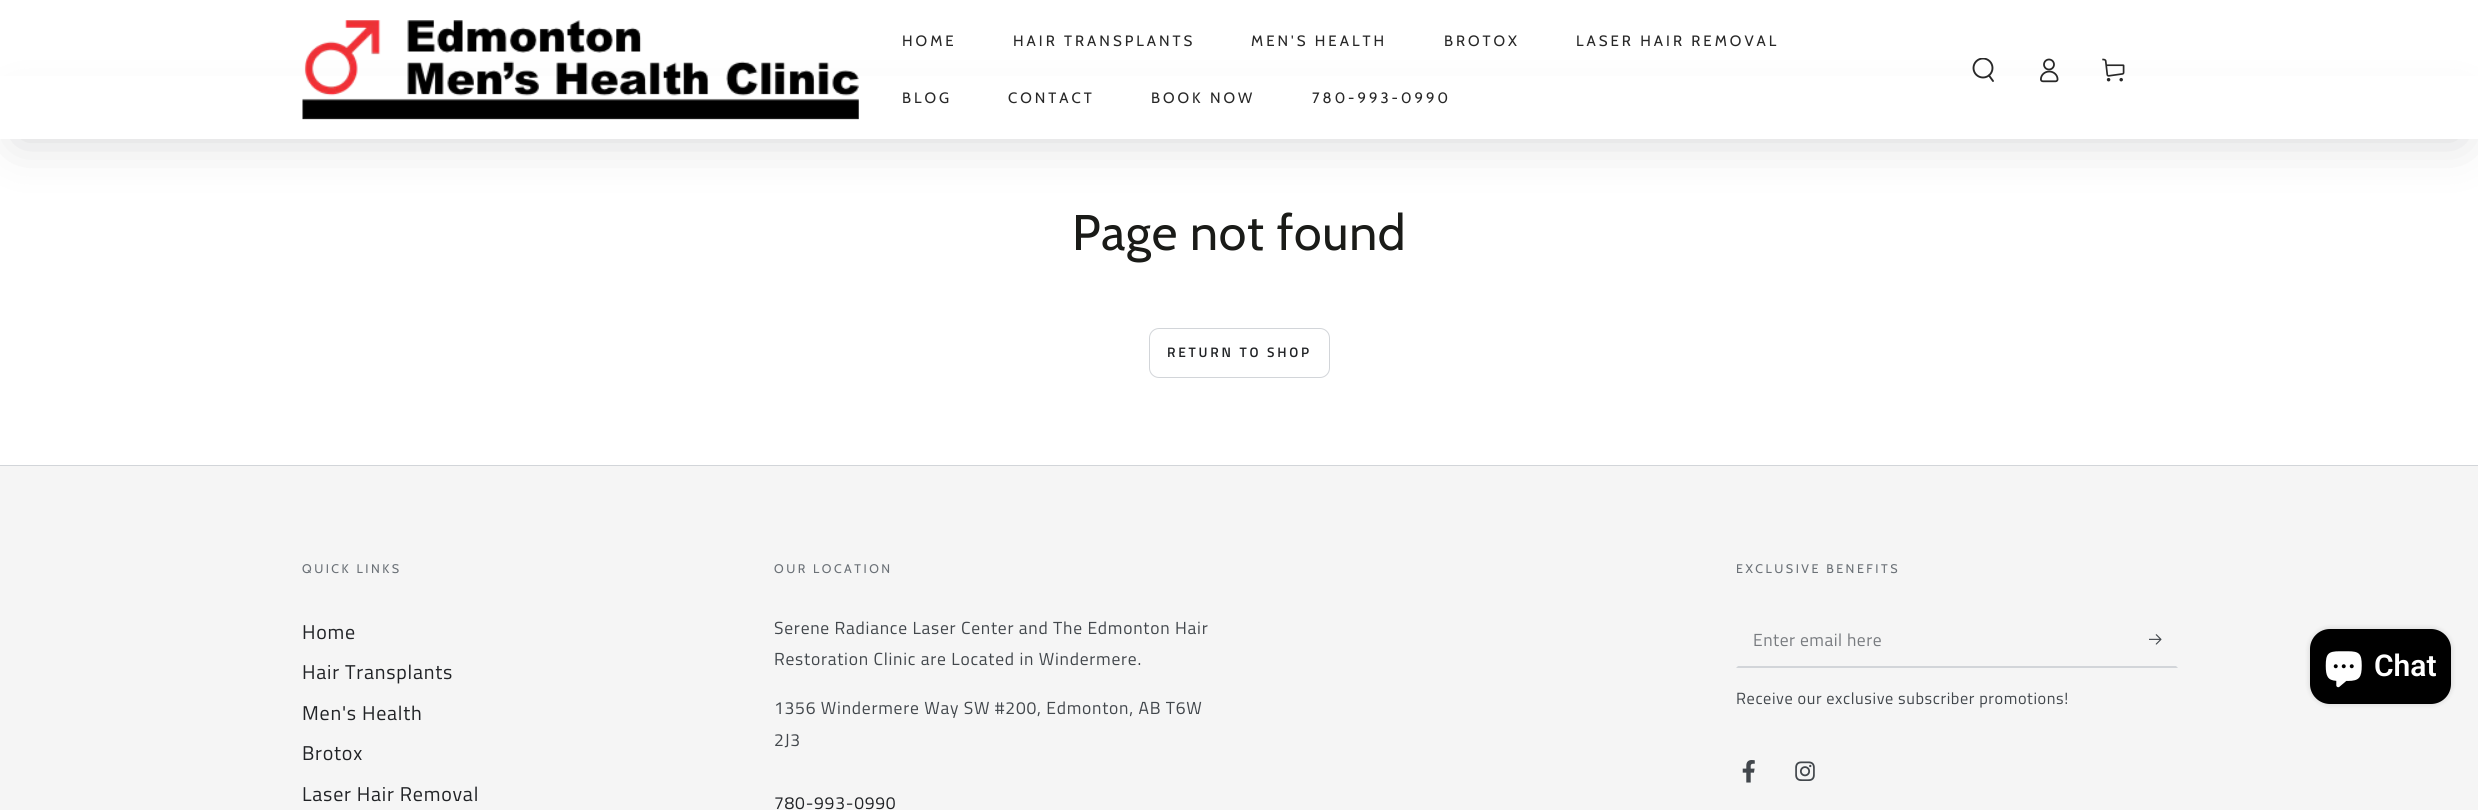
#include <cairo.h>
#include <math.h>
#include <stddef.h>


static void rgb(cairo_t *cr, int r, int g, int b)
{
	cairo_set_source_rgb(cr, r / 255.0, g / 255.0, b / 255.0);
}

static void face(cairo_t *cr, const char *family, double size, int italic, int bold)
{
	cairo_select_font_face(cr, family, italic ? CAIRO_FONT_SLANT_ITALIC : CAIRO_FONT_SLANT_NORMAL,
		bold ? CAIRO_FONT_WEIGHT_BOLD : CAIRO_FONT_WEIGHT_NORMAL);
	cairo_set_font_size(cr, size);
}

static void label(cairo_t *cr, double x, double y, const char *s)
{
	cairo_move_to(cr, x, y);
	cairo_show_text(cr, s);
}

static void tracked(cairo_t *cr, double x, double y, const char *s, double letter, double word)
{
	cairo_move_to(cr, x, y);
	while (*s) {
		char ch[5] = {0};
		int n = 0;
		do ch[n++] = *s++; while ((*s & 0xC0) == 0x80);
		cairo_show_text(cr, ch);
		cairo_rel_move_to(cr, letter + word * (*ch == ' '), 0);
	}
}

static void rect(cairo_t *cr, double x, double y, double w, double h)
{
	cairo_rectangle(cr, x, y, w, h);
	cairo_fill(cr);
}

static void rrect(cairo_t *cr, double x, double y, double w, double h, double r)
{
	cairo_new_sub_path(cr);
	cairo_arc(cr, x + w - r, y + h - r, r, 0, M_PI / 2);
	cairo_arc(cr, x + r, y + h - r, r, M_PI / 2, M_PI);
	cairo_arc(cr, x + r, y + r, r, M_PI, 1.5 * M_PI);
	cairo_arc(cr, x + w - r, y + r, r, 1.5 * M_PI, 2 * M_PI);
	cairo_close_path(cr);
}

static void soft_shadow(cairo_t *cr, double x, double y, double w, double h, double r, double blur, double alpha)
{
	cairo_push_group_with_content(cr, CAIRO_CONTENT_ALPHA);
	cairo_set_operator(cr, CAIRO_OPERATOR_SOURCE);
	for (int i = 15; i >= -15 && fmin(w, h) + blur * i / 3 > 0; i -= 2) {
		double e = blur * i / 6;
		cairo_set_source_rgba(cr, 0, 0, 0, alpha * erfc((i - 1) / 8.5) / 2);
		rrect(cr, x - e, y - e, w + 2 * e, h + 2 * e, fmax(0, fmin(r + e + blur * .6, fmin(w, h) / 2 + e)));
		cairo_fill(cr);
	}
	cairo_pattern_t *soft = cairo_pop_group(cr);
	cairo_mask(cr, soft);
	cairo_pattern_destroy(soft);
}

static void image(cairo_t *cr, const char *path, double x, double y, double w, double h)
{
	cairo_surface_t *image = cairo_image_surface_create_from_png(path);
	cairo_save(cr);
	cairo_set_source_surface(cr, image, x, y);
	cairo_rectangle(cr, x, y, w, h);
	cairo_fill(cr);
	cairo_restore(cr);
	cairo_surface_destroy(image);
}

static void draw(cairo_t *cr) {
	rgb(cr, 255, 255, 255);
	cairo_paint(cr);
	rgb(cr, 33, 35, 38);
	soft_shadow(cr, 19, 114, 2441, 25, 12.5, 25, 0.2);
	rgb(cr, 255, 255, 255);
	rect(cr, 0, 76, 2478, 63);
	image(cr, "image0.png", 302, 20, 557, 100);
	face(cr, "Cabin", 15, 0, 0);
	rgb(cr, 40, 40, 40);
	tracked(cr, 902, 46, "HOME", 3, 0);
	tracked(cr, 1013, 46, "HAIR TRANSPLANTS", 3, 0);
	tracked(cr, 1251, 46, "MEN'S HEALTH", 3, 0);
	tracked(cr, 1444, 46, "BROTOX", 3, 0);
	tracked(cr, 1576, 46, "LASER HAIR REMOVAL", 3, 0);
	tracked(cr, 902, 103, "BLOG", 3, 0);
	tracked(cr, 1008, 103, "CONTACT", 3, 0);
	tracked(cr, 1151, 103, "BOOK NOW", 3, 0);
	tracked(cr, 1312, 103, "780-993-0990", 3, 0);
	cairo_save(cr);
	cairo_rectangle(cr, 1971, 58, 25, 25);
	cairo_clip(cr);
	cairo_arc(cr, 1983, 68, 9.5, 0, 2 * M_PI);
	cairo_set_line_width(cr, 1.9);
	cairo_stroke(cr);
	cairo_restore(cr);
	cairo_new_path(cr);
	cairo_move_to(cr, 1989, 75.5);
	cairo_line_to(cr, 1993, 81);
	cairo_set_line_width(cr, 1.9);
	cairo_set_line_cap(cr, CAIRO_LINE_CAP_ROUND);
	cairo_stroke(cr);
	image(cr, "image1.png", 2040, 58, 19, 25);
	image(cr, "image2.png", 2102, 58, 23, 24);
	face(cr, "Cabin", 50, 0, 0);
	rgb(cr, 26, 27, 24);
	tracked(cr, 1072, 250, "Page not found", 0.75, 0);
	rrect(cr, 1149.5, 328.5, 180, 49, 9.5);
	rgb(cr, 210, 213, 217);
	cairo_set_line_width(cr, 1);
	cairo_set_line_cap(cr, CAIRO_LINE_CAP_BUTT);
	cairo_stroke(cr);
	face(cr, "Titillium Web SemiBold", 13.75, 0, 0);
	rgb(cr, 33, 35, 38);
	tracked(cr, 1167, 357, "RETURN TO SHOP", 2.75, 0);
	rgb(cr, 245, 245, 245);
	rect(cr, 0, 466, 2478, 344);
	rgb(cr, 210, 213, 217);
	rect(cr, 0, 465, 2478, 1);
	face(cr, "Cabin", 12.5, 0, 0);
	rgb(cr, 107, 113, 119);
	tracked(cr, 302, 573, "QUICK LINKS", 2.5, 0);
	face(cr, "Titillium Web", 20, 0, 0);
	rgb(cr, 33, 35, 38);
	tracked(cr, 302, 639, "Home", 0.75, 0);
	tracked(cr, 302, 679, "Hair Transplants", 0.75, 0);
	tracked(cr, 302, 720, "Men's Health", 0.75, 0);
	tracked(cr, 302, 760, "Brotox", 0.75, 0);
	tracked(cr, 302, 801, "Laser Hair Removal", 0.75, 0);
	face(cr, "Cabin", 12.5, 0, 0);
	rgb(cr, 107, 113, 119);
	tracked(cr, 774, 573, "OUR LOCATION", 2.5, 0);
	face(cr, "Titillium Web", 17.5, 0, 0);
	rgb(cr, 66, 71, 76);
	tracked(cr, 774, 634, "Serene Radiance Laser Center and The Edmonton Hair", 0.75, 0);
	tracked(cr, 774, 665, "Restoration Clinic are Located in Windermere.", 0.75, 0);
	tracked(cr, 774, 714, "1356 Windermere Way SW #200, Edmonton, AB T6W", 0.75, 0);
	tracked(cr, 774, 746, "2J3", 0.75, 0);
	rgb(cr, 33, 35, 38);
	tracked(cr, 774, 809, "780-993-0990", 0.75, 0);
	face(cr, "Cabin", 12.5, 0, 0);
	rgb(cr, 107, 113, 119);
	tracked(cr, 1736, 573, "EXCLUSIVE BENEFITS", 2.5, 0);
	rgb(cr, 210, 213, 217);
	cairo_new_path(cr);
	cairo_move_to(cr, 2178, 668);
	cairo_line_to(cr, 1736, 668);
	cairo_line_to(cr, 1738, 666);
	cairo_line_to(cr, 2176, 666);
	cairo_close_path(cr);
	cairo_fill(cr);
	face(cr, "Titillium Web", 17.5, 0, 0);
	rgb(cr, 120, 123, 127);
	tracked(cr, 1753, 646, "Enter email here", 0.5, 0);
	image(cr, "image3.png", 2149, 634, 13, 11);
	face(cr, "Titillium Web", 16.25, 0, 0);
	rgb(cr, 66, 71, 76);
	tracked(cr, 1736, 704, "Receive our exclusive subscriber promotions!", 0.6, 0);
	image(cr, "image4.png", 1742, 760, 13, 23);
	image(cr, "image5.png", 1795, 761, 20, 20);
	rgb(cr, 0, 0, 0);
	soft_shadow(cr, 2310, 629, 141, 75, 20, 3, 0.15);
	rgb(cr, 0, 0, 0);
	rrect(cr, 2310, 629, 141, 75, 20);
	cairo_fill(cr);
	image(cr, "image6.png", 2325, 651, 37, 37);
	face(cr, "Roboto SemiBold", 30, 0, 0);
	rgb(cr, 255, 255, 255);
	label(cr, 2374, 676, "Chat");
}

int main(void) {
	cairo_surface_t *surface = cairo_image_surface_create(CAIRO_FORMAT_RGB24, 2478, 810);
	cairo_t *cr = cairo_create(surface);
	cairo_font_options_t *options = cairo_font_options_create();
	cairo_font_options_set_hint_metrics(options, CAIRO_HINT_METRICS_OFF);
	cairo_font_options_set_hint_style(options, CAIRO_HINT_STYLE_NONE);
	cairo_set_font_options(cr, options);
	cairo_set_miter_limit(cr, 4);
	draw(cr);
	cairo_surface_write_to_png(surface, "render.png");
	cairo_font_options_destroy(options);
	cairo_destroy(cr);
	cairo_surface_destroy(surface);
	return 0;
}
